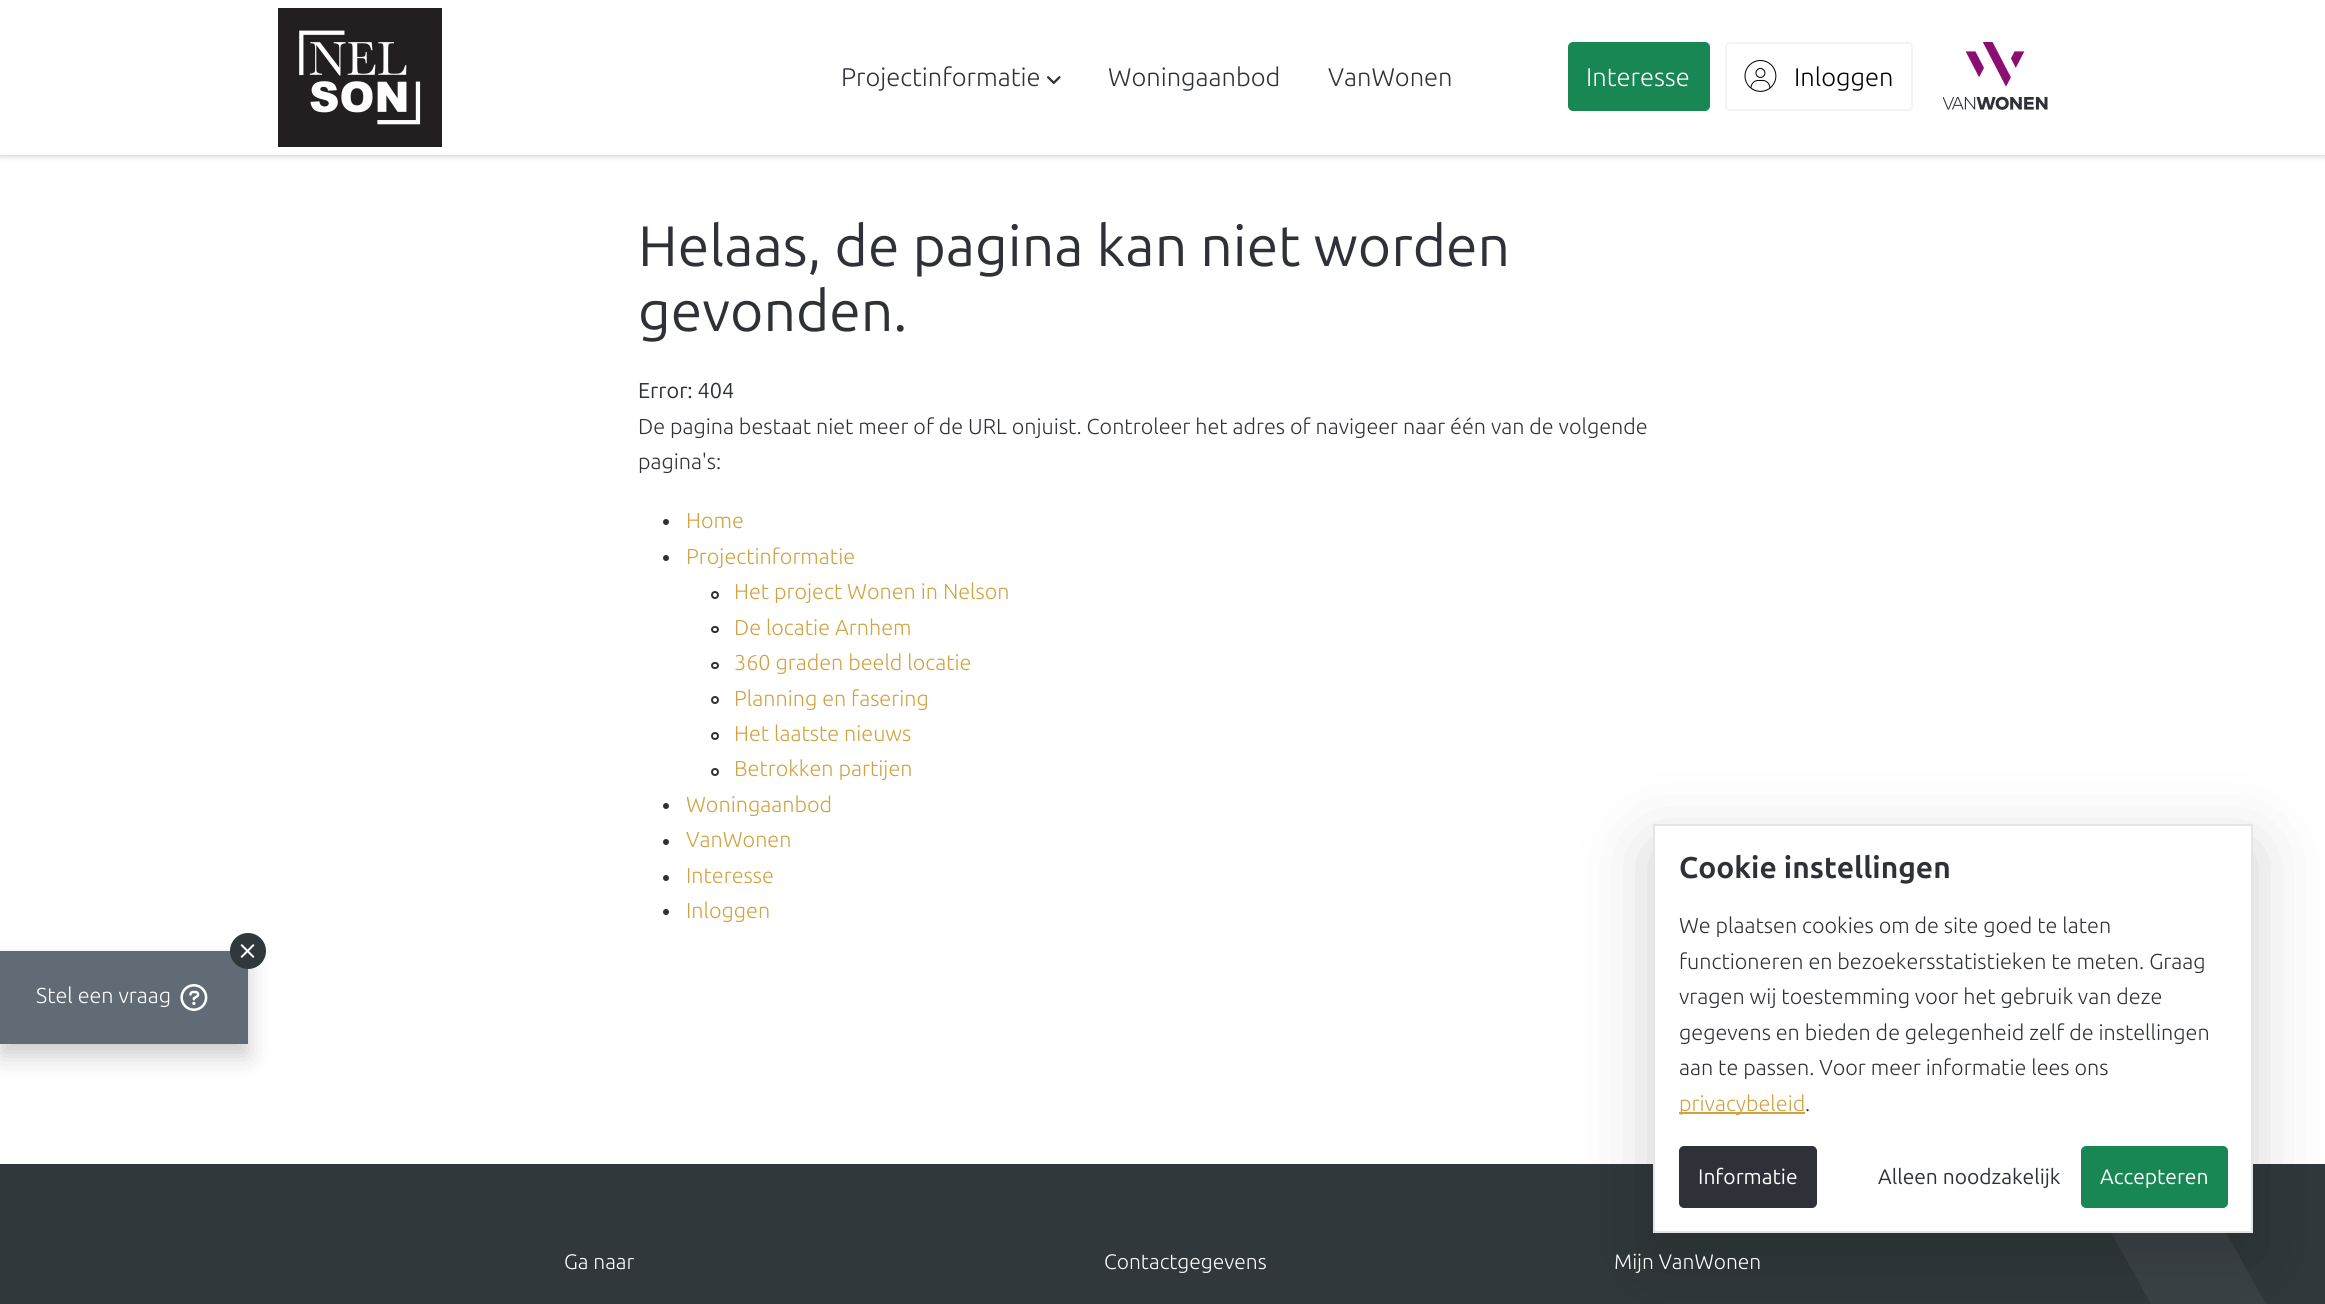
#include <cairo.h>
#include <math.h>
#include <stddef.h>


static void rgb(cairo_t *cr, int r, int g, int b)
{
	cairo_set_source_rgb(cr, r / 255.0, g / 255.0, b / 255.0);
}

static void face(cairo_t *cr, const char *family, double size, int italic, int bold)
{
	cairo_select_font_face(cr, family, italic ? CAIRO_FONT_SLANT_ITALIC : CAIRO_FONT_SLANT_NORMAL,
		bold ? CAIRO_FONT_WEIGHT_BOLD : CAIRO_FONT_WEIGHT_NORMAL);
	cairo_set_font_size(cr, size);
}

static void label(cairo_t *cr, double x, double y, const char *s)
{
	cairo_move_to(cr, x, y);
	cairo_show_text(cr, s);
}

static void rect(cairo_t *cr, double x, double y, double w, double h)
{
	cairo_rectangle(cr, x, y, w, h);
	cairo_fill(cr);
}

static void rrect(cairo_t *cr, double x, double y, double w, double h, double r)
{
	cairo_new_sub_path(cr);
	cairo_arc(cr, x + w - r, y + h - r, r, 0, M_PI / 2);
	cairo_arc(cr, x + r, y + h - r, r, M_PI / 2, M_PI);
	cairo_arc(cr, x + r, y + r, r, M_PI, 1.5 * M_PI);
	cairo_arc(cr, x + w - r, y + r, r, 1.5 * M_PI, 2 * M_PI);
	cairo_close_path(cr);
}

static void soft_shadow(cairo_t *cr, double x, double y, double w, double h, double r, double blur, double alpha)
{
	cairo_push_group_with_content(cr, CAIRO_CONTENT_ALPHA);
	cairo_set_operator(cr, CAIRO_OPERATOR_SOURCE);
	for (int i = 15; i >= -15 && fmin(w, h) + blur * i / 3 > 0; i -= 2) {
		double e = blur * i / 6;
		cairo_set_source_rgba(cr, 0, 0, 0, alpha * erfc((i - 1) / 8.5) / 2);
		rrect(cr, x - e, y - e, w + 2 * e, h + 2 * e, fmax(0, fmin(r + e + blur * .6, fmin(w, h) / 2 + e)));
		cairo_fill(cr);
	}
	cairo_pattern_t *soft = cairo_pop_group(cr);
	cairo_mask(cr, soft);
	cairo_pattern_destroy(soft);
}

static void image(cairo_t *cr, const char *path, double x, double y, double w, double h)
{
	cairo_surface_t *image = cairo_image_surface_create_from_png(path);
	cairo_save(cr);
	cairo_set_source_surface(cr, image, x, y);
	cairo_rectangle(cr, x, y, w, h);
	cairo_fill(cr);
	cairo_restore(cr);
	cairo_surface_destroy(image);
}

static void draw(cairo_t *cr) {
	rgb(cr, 255, 255, 255);
	cairo_paint(cr);
	rgb(cr, 0, 0, 0);
	soft_shadow(cr, 0, 2, 2325, 154, 0, 3, 0.2);
	rgb(cr, 255, 255, 255);
	rect(cr, 0, 0, 2325, 155);
	image(cr, "image0.png", 278, 8, 164, 139);
	face(cr, "Ubuntu Light", 25.5, 0, 0);
	rgb(cr, 46, 49, 55);
	label(cr, 841, 86, "Projectinformatie");
	image(cr, "image1.png", 1047, 76, 14, 8);
	label(cr, 1108, 86, "Woningaanbod");
	label(cr, 1328, 86, "VanWonen");
	rgb(cr, 25, 135, 84);
	rrect(cr, 1569, 43, 140, 67, 4);
	cairo_fill_preserve(cr);
	cairo_stroke(cr);
	rgb(cr, 255, 255, 255);
	label(cr, 1586, 86, "Interesse");
	rrect(cr, 1726, 43, 186, 67, 4);
	rgb(cr, 243, 243, 240);
	cairo_stroke(cr);
	image(cr, "image2.png", 1744, 60, 33, 32);
	rgb(cr, 0, 0, 0);
	label(cr, 1794, 86, "Inloggen");
	image(cr, "image3.png", 1943, 42, 105, 68);
	face(cr, "Ubuntu", 57, 0, 0);
	rgb(cr, 46, 49, 55);
	label(cr, 638, 266, "Helaas, de pagina kan niet worden");
	label(cr, 638, 331, "gevonden.");
	face(cr, "Ubuntu", 21.6, 0, 0);
	label(cr, 638, 398, "Error: 404");
	face(cr, "Ubuntu Light", 21.6, 0, 0);
	label(cr, 638, 434, "De pagina bestaat niet meer of de URL onjuist. Controleer het adres of navigeer naar één van de volgende");
	label(cr, 638, 469, "pagina's:");
	cairo_new_path(cr);
	cairo_arc(cr, 666, 522, 3, 0, 2 * M_PI);
	cairo_fill(cr);
	rgb(cr, 208, 162, 64);
	label(cr, 686, 528, "Home");
	rgb(cr, 46, 49, 55);
	cairo_new_path(cr);
	cairo_arc(cr, 666, 558, 3, 0, 2 * M_PI);
	cairo_fill(cr);
	rgb(cr, 208, 162, 64);
	label(cr, 686, 564, "Projectinformatie");
	cairo_new_path(cr);
	cairo_arc(cr, 715, 595, 3, 0, 2 * M_PI);
	rgb(cr, 46, 49, 55);
	cairo_stroke(cr);
	rgb(cr, 208, 162, 64);
	label(cr, 734, 599, "Het project Wonen in Nelson");
	rrect(cr, 712, 627, 6, 5, 2.5);
	rgb(cr, 46, 49, 55);
	cairo_stroke(cr);
	rgb(cr, 208, 162, 64);
	label(cr, 734, 635, "De locatie Arnhem");
	rrect(cr, 712, 663, 6, 5, 2.5);
	rgb(cr, 46, 49, 55);
	cairo_stroke(cr);
	rgb(cr, 208, 162, 64);
	label(cr, 734, 670, "360 graden beeld locatie");
	cairo_new_path(cr);
	cairo_arc(cr, 715, 700, 3, 0, 2 * M_PI);
	rgb(cr, 46, 49, 55);
	cairo_stroke(cr);
	rgb(cr, 208, 162, 64);
	label(cr, 734, 706, "Planning en fasering");
	cairo_new_path(cr);
	cairo_arc(cr, 715, 736, 3, 0, 2 * M_PI);
	rgb(cr, 46, 49, 55);
	cairo_stroke(cr);
	rgb(cr, 208, 162, 64);
	label(cr, 734, 741, "Het laatste nieuws");
	cairo_new_path(cr);
	cairo_arc(cr, 715, 772, 3, 0, 2 * M_PI);
	rgb(cr, 46, 49, 55);
	cairo_stroke(cr);
	rgb(cr, 208, 162, 64);
	label(cr, 734, 776, "Betrokken partijen");
	rgb(cr, 46, 49, 55);
	cairo_new_path(cr);
	cairo_arc(cr, 666, 806, 3, 0, 2 * M_PI);
	cairo_fill(cr);
	rgb(cr, 208, 162, 64);
	label(cr, 686, 812, "Woningaanbod");
	rgb(cr, 46, 49, 55);
	cairo_new_path(cr);
	cairo_arc(cr, 666, 842, 3, 0, 2 * M_PI);
	cairo_fill(cr);
	rgb(cr, 208, 162, 64);
	label(cr, 686, 847, "VanWonen");
	rgb(cr, 46, 49, 55);
	cairo_new_path(cr);
	cairo_arc(cr, 666, 878, 3, 0, 2 * M_PI);
	cairo_fill(cr);
	rgb(cr, 208, 162, 64);
	label(cr, 686, 883, "Interesse");
	rgb(cr, 46, 49, 55);
	cairo_new_path(cr);
	cairo_arc(cr, 666, 912, 3, 0, 2 * M_PI);
	cairo_fill(cr);
	rgb(cr, 208, 162, 64);
	label(cr, 686, 918, "Inloggen");
	rgb(cr, 0, 0, 0);
	soft_shadow(cr, 0, 963, 248, 93, 0, 12, 0.2);
	rgb(cr, 97, 107, 117);
	rect(cr, 0, 951, 248, 93);
	rgb(cr, 48, 56, 59);
	cairo_arc(cr, 248, 951, 18, 0, 2 * M_PI);
	cairo_fill(cr);
	image(cr, "image4.png", 240, 944, 15, 14);
	rgb(cr, 255, 255, 255);
	label(cr, 36, 1003, "Stel een vraag");
	image(cr, "image5.png", 180, 984, 28, 27);
	rgb(cr, 48, 56, 59);
	rect(cr, 0, 1164, 2325, 140);
	rgb(cr, 59, 66, 69);
	cairo_new_path(cr);
	cairo_move_to(cr, 2103, 1218);
	cairo_line_to(cr, 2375, 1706);
	cairo_line_to(cr, 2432, 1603);
	cairo_line_to(cr, 2218, 1218);
	cairo_close_path(cr);
	cairo_move_to(cr, 1903, 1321);
	cairo_line_to(cr, 2061, 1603);
	cairo_line_to(cr, 2118, 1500);
	cairo_line_to(cr, 2018, 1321);
	cairo_close_path(cr);
	cairo_fill(cr);
	rgb(cr, 0, 0, 0);
	soft_shadow(cr, 1653, 848, 600, 409, 0, 36, 0.18);
	rgb(cr, 255, 255, 255);
	cairo_rectangle(cr, 1654, 825, 598, 407);
	cairo_fill_preserve(cr);
	rgb(cr, 229, 229, 229);
	cairo_stroke(cr);
	face(cr, "Ubuntu", 30, 0, 1);
	rgb(cr, 46, 49, 55);
	label(cr, 1679, 878, "Cookie instellingen");
	face(cr, "Ubuntu Light", 21.6, 0, 0);
	label(cr, 1679, 933, "We plaatsen cookies om de site goed te laten");
	label(cr, 1679, 969, "functioneren en bezoekersstatistieken te meten. Graag");
	label(cr, 1679, 1004, "vragen wij toestemming voor het gebruik van deze");
	label(cr, 1679, 1040, "gegevens en bieden de gelegenheid zelf de instellingen");
	label(cr, 1679, 1075, "aan te passen. Voor meer informatie lees ons");
	rgb(cr, 208, 162, 64);
	rect(cr, 1679, 1112, 126, 2);
	label(cr, 1679, 1111, "privacybeleid");
	rgb(cr, 46, 49, 55);
	label(cr, 1805, 1111, ".");
	rrect(cr, 1680, 1147, 136, 60, 4);
	cairo_fill_preserve(cr);
	cairo_stroke(cr);
	face(cr, "Ubuntu", 21, 0, 0);
	rgb(cr, 255, 255, 255);
	label(cr, 1698, 1184, "Informatie");
	rgb(cr, 46, 49, 55);
	label(cr, 1878, 1184, "Alleen noodzakelijk");
	rgb(cr, 25, 135, 84);
	rrect(cr, 2082, 1147, 145, 60, 4);
	cairo_fill_preserve(cr);
	cairo_stroke(cr);
	rgb(cr, 255, 255, 255);
	label(cr, 2100, 1184, "Accepteren");
	face(cr, "Ubuntu Light", 21, 0, 0);
	label(cr, 564, 1269, "Ga naar");
	label(cr, 1104, 1269, "Contactgegevens");
	label(cr, 1614, 1269, "Mijn VanWonen");
}

int main(void) {
	cairo_surface_t *surface = cairo_image_surface_create(CAIRO_FORMAT_RGB24, 2325, 1304);
	cairo_t *cr = cairo_create(surface);
	cairo_font_options_t *options = cairo_font_options_create();
	cairo_font_options_set_hint_metrics(options, CAIRO_HINT_METRICS_OFF);
	cairo_font_options_set_hint_style(options, CAIRO_HINT_STYLE_NONE);
	cairo_set_font_options(cr, options);
	cairo_set_miter_limit(cr, 4);
	draw(cr);
	cairo_surface_write_to_png(surface, "render.png");
	cairo_font_options_destroy(options);
	cairo_destroy(cr);
	cairo_surface_destroy(surface);
	return 0;
}
